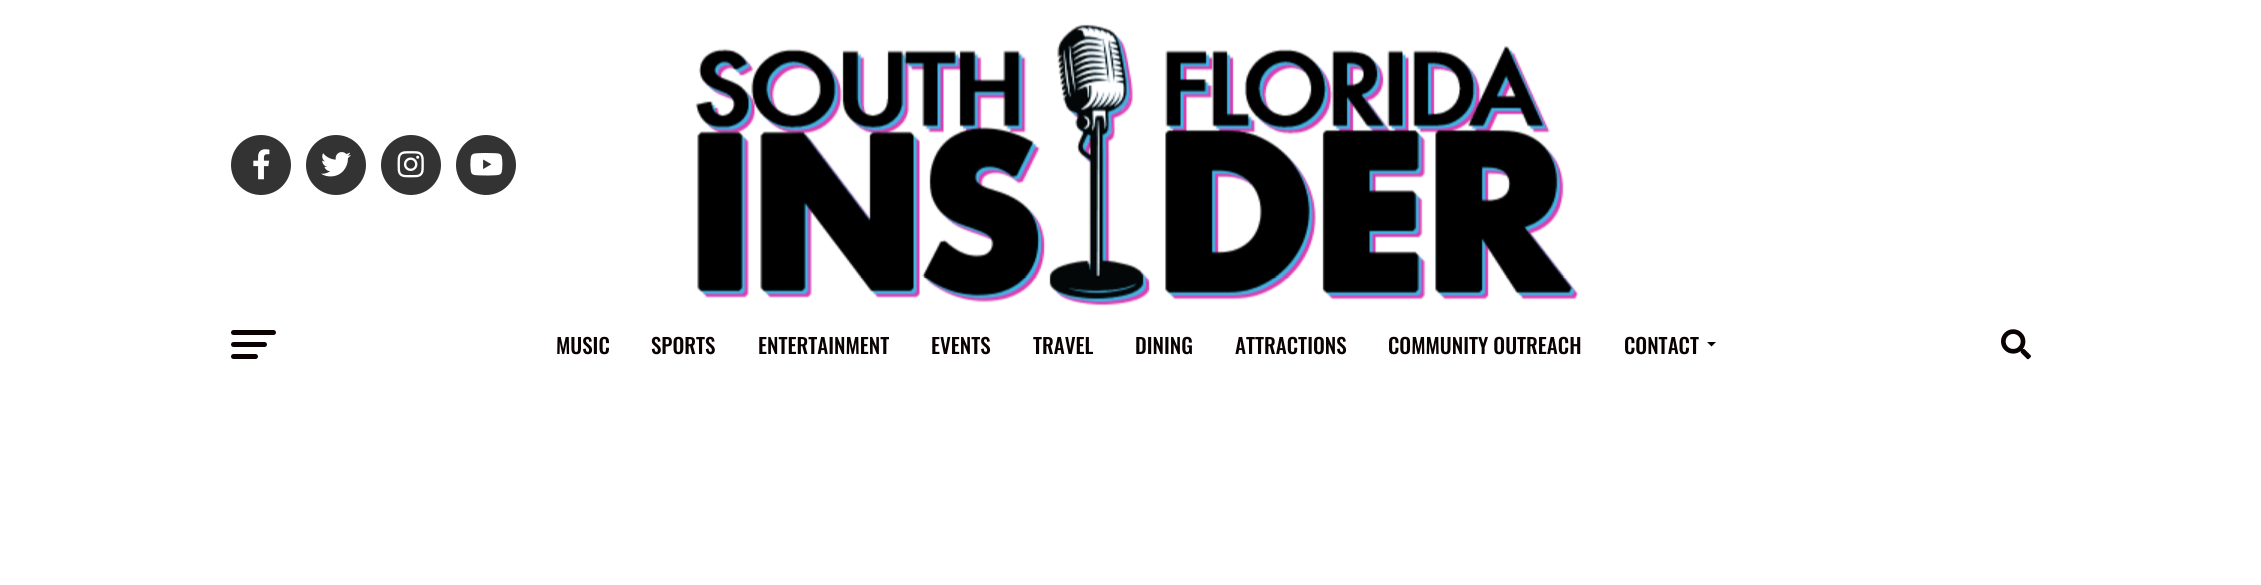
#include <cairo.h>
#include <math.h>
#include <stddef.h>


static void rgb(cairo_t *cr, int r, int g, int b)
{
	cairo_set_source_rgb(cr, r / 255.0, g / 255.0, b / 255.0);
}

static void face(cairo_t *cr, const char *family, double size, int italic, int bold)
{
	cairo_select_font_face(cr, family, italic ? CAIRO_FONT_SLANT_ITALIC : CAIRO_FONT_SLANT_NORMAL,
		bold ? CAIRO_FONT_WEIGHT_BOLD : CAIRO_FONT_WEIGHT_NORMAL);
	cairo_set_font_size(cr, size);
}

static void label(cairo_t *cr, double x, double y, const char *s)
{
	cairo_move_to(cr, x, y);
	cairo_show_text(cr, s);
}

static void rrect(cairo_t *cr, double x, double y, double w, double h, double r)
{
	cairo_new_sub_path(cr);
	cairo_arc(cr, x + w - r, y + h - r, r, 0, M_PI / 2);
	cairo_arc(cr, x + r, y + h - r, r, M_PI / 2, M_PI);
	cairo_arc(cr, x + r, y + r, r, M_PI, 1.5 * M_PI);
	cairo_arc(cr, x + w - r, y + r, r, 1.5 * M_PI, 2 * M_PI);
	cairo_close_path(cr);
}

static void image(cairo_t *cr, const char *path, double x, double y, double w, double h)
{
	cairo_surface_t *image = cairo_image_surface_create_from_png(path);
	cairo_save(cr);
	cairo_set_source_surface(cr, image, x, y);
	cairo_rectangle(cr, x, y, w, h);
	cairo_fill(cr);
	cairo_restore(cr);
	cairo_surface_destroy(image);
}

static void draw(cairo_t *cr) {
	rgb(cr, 255, 255, 255);
	cairo_paint(cr);
	rgb(cr, 51, 51, 51);
	cairo_arc(cr, 261, 165, 30, 0, 2 * M_PI);
	cairo_fill(cr);
	image(cr, "image0.png", 253, 149, 17, 31);
	cairo_arc(cr, 336, 165, 30, 0, 2 * M_PI);
	cairo_fill(cr);
	image(cr, "image1.png", 321, 152, 30, 25);
	cairo_arc(cr, 411, 165, 30, 0, 2 * M_PI);
	cairo_fill(cr);
	image(cr, "image2.png", 397, 151, 27, 27);
	cairo_arc(cr, 486, 165, 30, 0, 2 * M_PI);
	cairo_fill(cr);
	image(cr, "image3.png", 470, 153, 33, 23);
	image(cr, "image4.png", 695, 24, 884, 282);
	rgb(cr, 10, 2, 2);
	rrect(cr, 231, 330, 45, 5, 2.5);
	cairo_fill(cr);
	rrect(cr, 231, 342, 36, 5, 2.5);
	cairo_fill(cr);
	rrect(cr, 231, 354, 27, 5, 2.5);
	cairo_fill(cr);
	face(cr, "Oswald Medium", 21, 0, 0);
	label(cr, 556, 354, "MUSIC");
	label(cr, 651, 354, "SPORTS");
	label(cr, 758, 354, "ENTERTAINMENT");
	label(cr, 931, 354, "EVENTS");
	label(cr, 1033, 354, "TRAVEL");
	label(cr, 1135, 354, "DINING");
	label(cr, 1235, 354, "ATTRACTIONS");
	label(cr, 1388, 354, "COMMUNITY OUTREACH");
	label(cr, 1624, 354, "CONTACT");
	cairo_new_path(cr);
	cairo_move_to(cr, 1707, 342);
	cairo_line_to(cr, 1716, 342);
	cairo_line_to(cr, 1711.5, 346.5);
	cairo_close_path(cr);
	cairo_fill(cr);
	image(cr, "image5.png", 2001, 329, 30, 31);
}

int main(void) {
	cairo_surface_t *surface = cairo_image_surface_create(CAIRO_FORMAT_RGB24, 2261, 585);
	cairo_t *cr = cairo_create(surface);
	cairo_font_options_t *options = cairo_font_options_create();
	cairo_font_options_set_hint_metrics(options, CAIRO_HINT_METRICS_OFF);
	cairo_font_options_set_hint_style(options, CAIRO_HINT_STYLE_NONE);
	cairo_set_font_options(cr, options);
	cairo_set_miter_limit(cr, 4);
	draw(cr);
	cairo_surface_write_to_png(surface, "render.png");
	cairo_font_options_destroy(options);
	cairo_destroy(cr);
	cairo_surface_destroy(surface);
	return 0;
}
